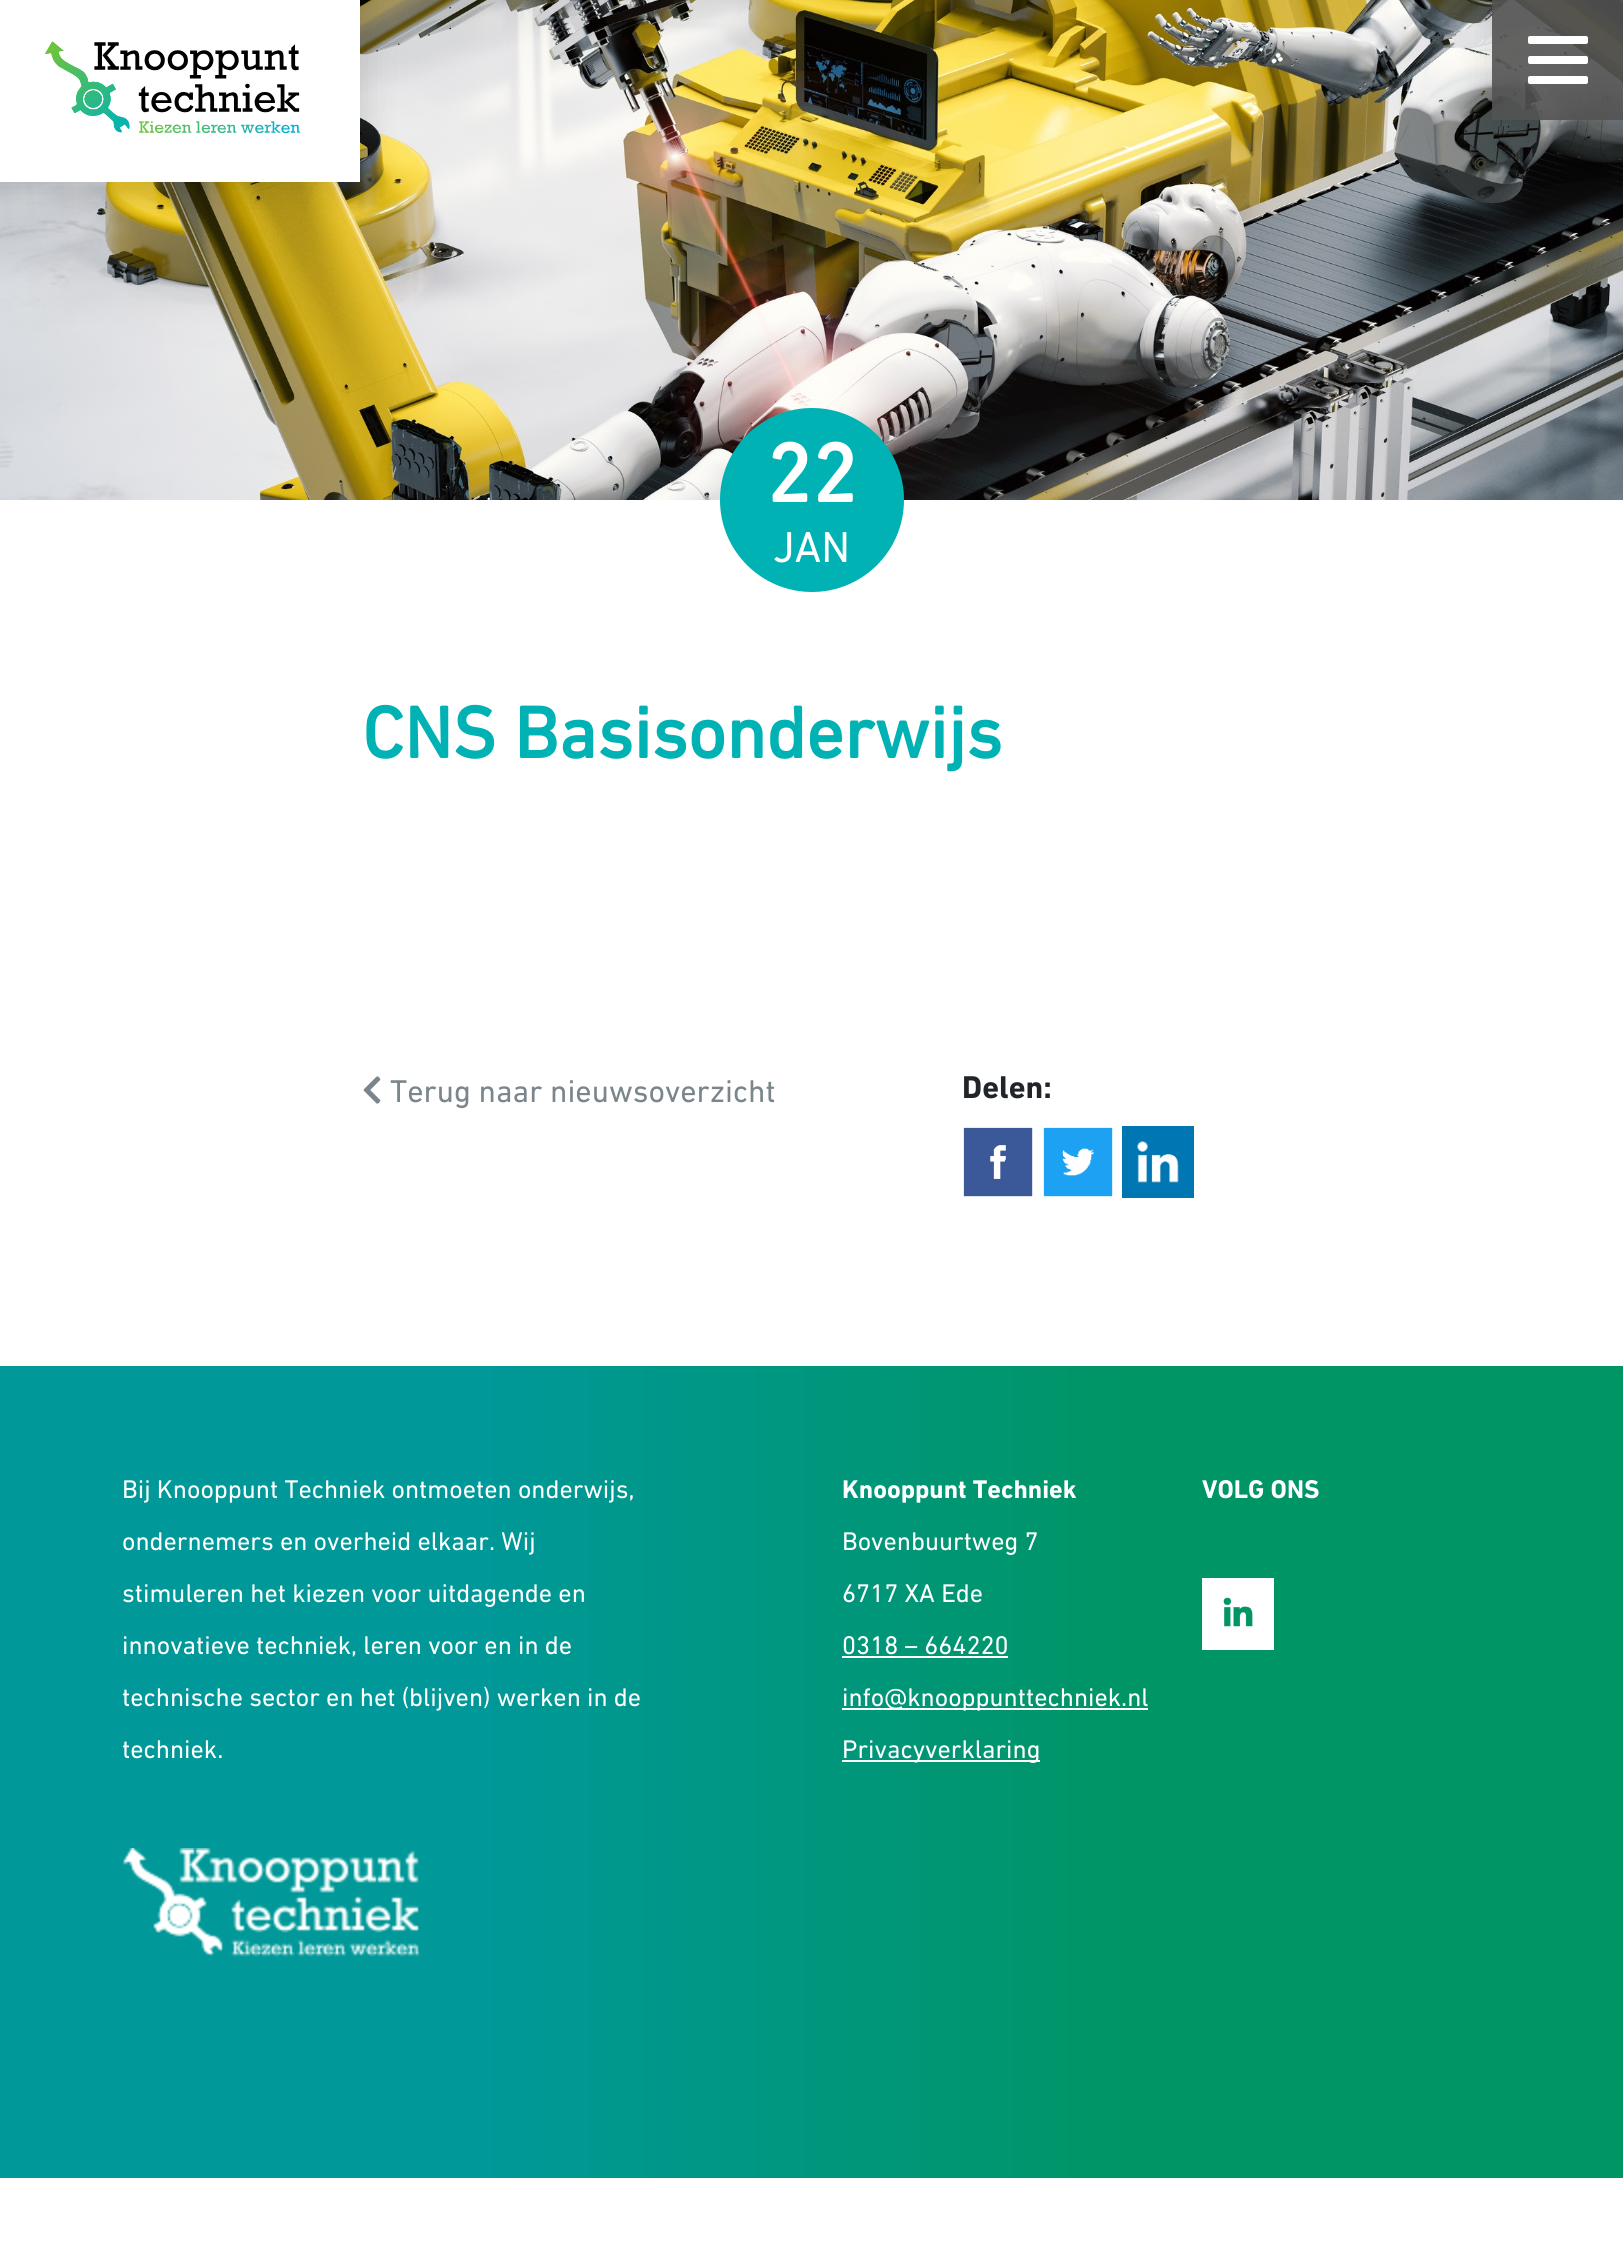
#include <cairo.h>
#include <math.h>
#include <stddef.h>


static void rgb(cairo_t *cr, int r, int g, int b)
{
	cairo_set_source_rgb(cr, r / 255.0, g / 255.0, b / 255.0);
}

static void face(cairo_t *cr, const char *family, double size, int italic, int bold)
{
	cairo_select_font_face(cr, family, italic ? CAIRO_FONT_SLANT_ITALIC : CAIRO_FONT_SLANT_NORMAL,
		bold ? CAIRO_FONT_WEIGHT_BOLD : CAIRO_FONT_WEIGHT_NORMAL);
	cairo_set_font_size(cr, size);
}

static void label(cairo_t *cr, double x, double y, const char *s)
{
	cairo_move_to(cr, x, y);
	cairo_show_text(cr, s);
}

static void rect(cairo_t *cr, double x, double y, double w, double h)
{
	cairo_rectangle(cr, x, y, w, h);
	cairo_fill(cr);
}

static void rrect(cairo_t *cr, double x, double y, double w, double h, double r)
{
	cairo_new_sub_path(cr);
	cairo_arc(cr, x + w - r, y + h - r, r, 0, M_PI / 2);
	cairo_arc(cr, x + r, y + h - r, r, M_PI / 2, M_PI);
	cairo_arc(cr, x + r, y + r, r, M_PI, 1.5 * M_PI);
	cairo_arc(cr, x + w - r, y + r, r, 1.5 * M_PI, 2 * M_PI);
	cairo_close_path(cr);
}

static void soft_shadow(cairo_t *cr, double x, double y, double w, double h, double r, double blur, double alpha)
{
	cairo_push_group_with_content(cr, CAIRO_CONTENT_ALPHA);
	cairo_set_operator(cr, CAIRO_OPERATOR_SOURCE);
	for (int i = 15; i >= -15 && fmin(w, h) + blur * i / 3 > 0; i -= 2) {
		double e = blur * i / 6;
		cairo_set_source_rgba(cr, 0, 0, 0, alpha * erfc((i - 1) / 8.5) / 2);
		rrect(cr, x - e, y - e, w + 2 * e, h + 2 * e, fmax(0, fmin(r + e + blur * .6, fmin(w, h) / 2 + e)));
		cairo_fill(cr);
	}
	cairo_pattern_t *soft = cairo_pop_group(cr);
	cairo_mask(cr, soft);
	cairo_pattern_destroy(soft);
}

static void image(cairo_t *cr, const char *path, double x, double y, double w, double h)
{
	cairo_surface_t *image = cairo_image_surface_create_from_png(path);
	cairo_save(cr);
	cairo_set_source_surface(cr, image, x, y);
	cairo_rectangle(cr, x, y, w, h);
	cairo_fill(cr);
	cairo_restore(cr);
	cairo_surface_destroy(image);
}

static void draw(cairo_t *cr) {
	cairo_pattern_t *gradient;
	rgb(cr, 255, 255, 255);
	cairo_paint(cr);
	image(cr, "image1.png", 0, 0, 1623, 500);
	rgb(cr, 0, 0, 0);
	soft_shadow(cr, -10, -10, 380, 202, 0, 15, 0.1);
	rgb(cr, 255, 255, 255);
	rect(cr, 0, 0, 360, 182);
	image(cr, "image0.png", 45, 41, 255, 92);
	cairo_save(cr);
	cairo_set_fill_rule(cr, CAIRO_FILL_RULE_EVEN_ODD);
	cairo_new_path(cr);
	cairo_move_to(cr, 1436, 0);
	cairo_line_to(cr, 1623, 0);
	cairo_line_to(cr, 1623, 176);
	cairo_line_to(cr, 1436, 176);
	cairo_close_path(cr);
	cairo_move_to(cr, 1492, 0);
	cairo_line_to(cr, 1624, 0);
	cairo_line_to(cr, 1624, 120);
	cairo_line_to(cr, 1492, 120);
	cairo_close_path(cr);
	cairo_clip(cr);
	rgb(cr, 0, 0, 0);
	soft_shadow(cr, 1482, -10, 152, 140, 0, 15, 0.1);
	cairo_restore(cr);
	cairo_set_source_rgba(cr, 0.322, 0.322, 0.322, 0.9);
	rect(cr, 1492, 0, 131, 120);
	rgb(cr, 255, 255, 255);
	rrect(cr, 1528, 36, 60, 8, 2);
	cairo_fill(cr);
	rrect(cr, 1528, 56, 60, 8, 2);
	cairo_fill(cr);
	rrect(cr, 1528, 76, 60, 8, 2);
	cairo_fill(cr);
	rgb(cr, 0, 178, 180);
	cairo_arc(cr, 812, 500, 92, 0, 2 * M_PI);
	cairo_fill(cr);
	face(cr, "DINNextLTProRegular", 84, 0, 1);
	rgb(cr, 255, 255, 255);
	label(cr, 766, 502, "22");
	face(cr, "DINNextLTProRegular", 44, 0, 0);
	label(cr, 773, 562, "JAN");
	face(cr, "DINNextLTProRegular", 74, 0, 1);
	rgb(cr, 0, 178, 180);
	label(cr, 362, 758, "CNS Basisonderwijs");
	image(cr, "image2.png", 363, 1076, 18, 28);
	face(cr, "DINNextLTProRegular", 32, 0, 0);
	rgb(cr, 123, 134, 140);
	label(cr, 390, 1102, "Terug naar nieuwsoverzicht");
	face(cr, "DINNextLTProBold", 32, 0, 0);
	rgb(cr, 33, 37, 41);
	label(cr, 962, 1098, "Delen:");
	image(cr, "image3.png", 963, 1127, 70, 70);
	image(cr, "image4.png", 1043, 1127, 70, 70);
	image(cr, "image5.png", 1122, 1126, 72, 72);
	gradient = cairo_pattern_create_linear(0, 1772, 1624, 1772);
	cairo_pattern_add_color_stop_rgba(gradient, 0.3, 0, 0.596, 0.596, 1);
	cairo_pattern_add_color_stop_rgba(gradient, 0.7, 0, 0.584, 0.392, 1);
	cairo_set_source(cr, gradient);
	cairo_pattern_destroy(gradient);
	rect(cr, 0, 1366, 1623, 812);
	face(cr, "DINNextLTProRegular", 26, 0, 0);
	rgb(cr, 255, 255, 255);
	label(cr, 122, 1498, "Bij Knooppunt Techniek ontmoeten onderwijs,");
	label(cr, 122, 1550, "ondernemers en overheid elkaar. Wij");
	label(cr, 122, 1602, "stimuleren het kiezen voor uitdagende en");
	label(cr, 122, 1654, "innovatieve techniek, leren voor en in de");
	label(cr, 122, 1706, "technische sector en het (blijven) werken in de");
	label(cr, 122, 1758, "techniek.");
	image(cr, "image6.png", 122, 1848, 299, 109);
	face(cr, "DINNextLTProBold", 26, 0, 0);
	label(cr, 842, 1498, "Knooppunt Techniek");
	face(cr, "DINNextLTProRegular", 26, 0, 0);
	label(cr, 842, 1550, "Bovenbuurtweg 7");
	label(cr, 842, 1602, "6717 XA Ede");
	label(cr, 842, 1654, "0318 – 664220");
	rect(cr, 842, 1656, 166, 2);
	rect(cr, 842, 1708, 306, 2);
	label(cr, 842, 1706, "info@knooppunttechniek.nl");
	rect(cr, 842, 1760, 198, 2);
	label(cr, 842, 1758, "Privacyverklaring");
	face(cr, "DINNextLTProBold", 26, 0, 0);
	label(cr, 1202, 1498, "VOLG ONS");
	image(cr, "image7.png", 1202, 1578, 72, 72);
}

int main(void) {
	cairo_surface_t *surface = cairo_image_surface_create(CAIRO_FORMAT_RGB24, 1623, 2252);
	cairo_t *cr = cairo_create(surface);
	cairo_font_options_t *options = cairo_font_options_create();
	cairo_font_options_set_hint_metrics(options, CAIRO_HINT_METRICS_OFF);
	cairo_font_options_set_hint_style(options, CAIRO_HINT_STYLE_NONE);
	cairo_set_font_options(cr, options);
	cairo_set_miter_limit(cr, 4);
	draw(cr);
	cairo_surface_write_to_png(surface, "render.png");
	cairo_font_options_destroy(options);
	cairo_destroy(cr);
	cairo_surface_destroy(surface);
	return 0;
}
